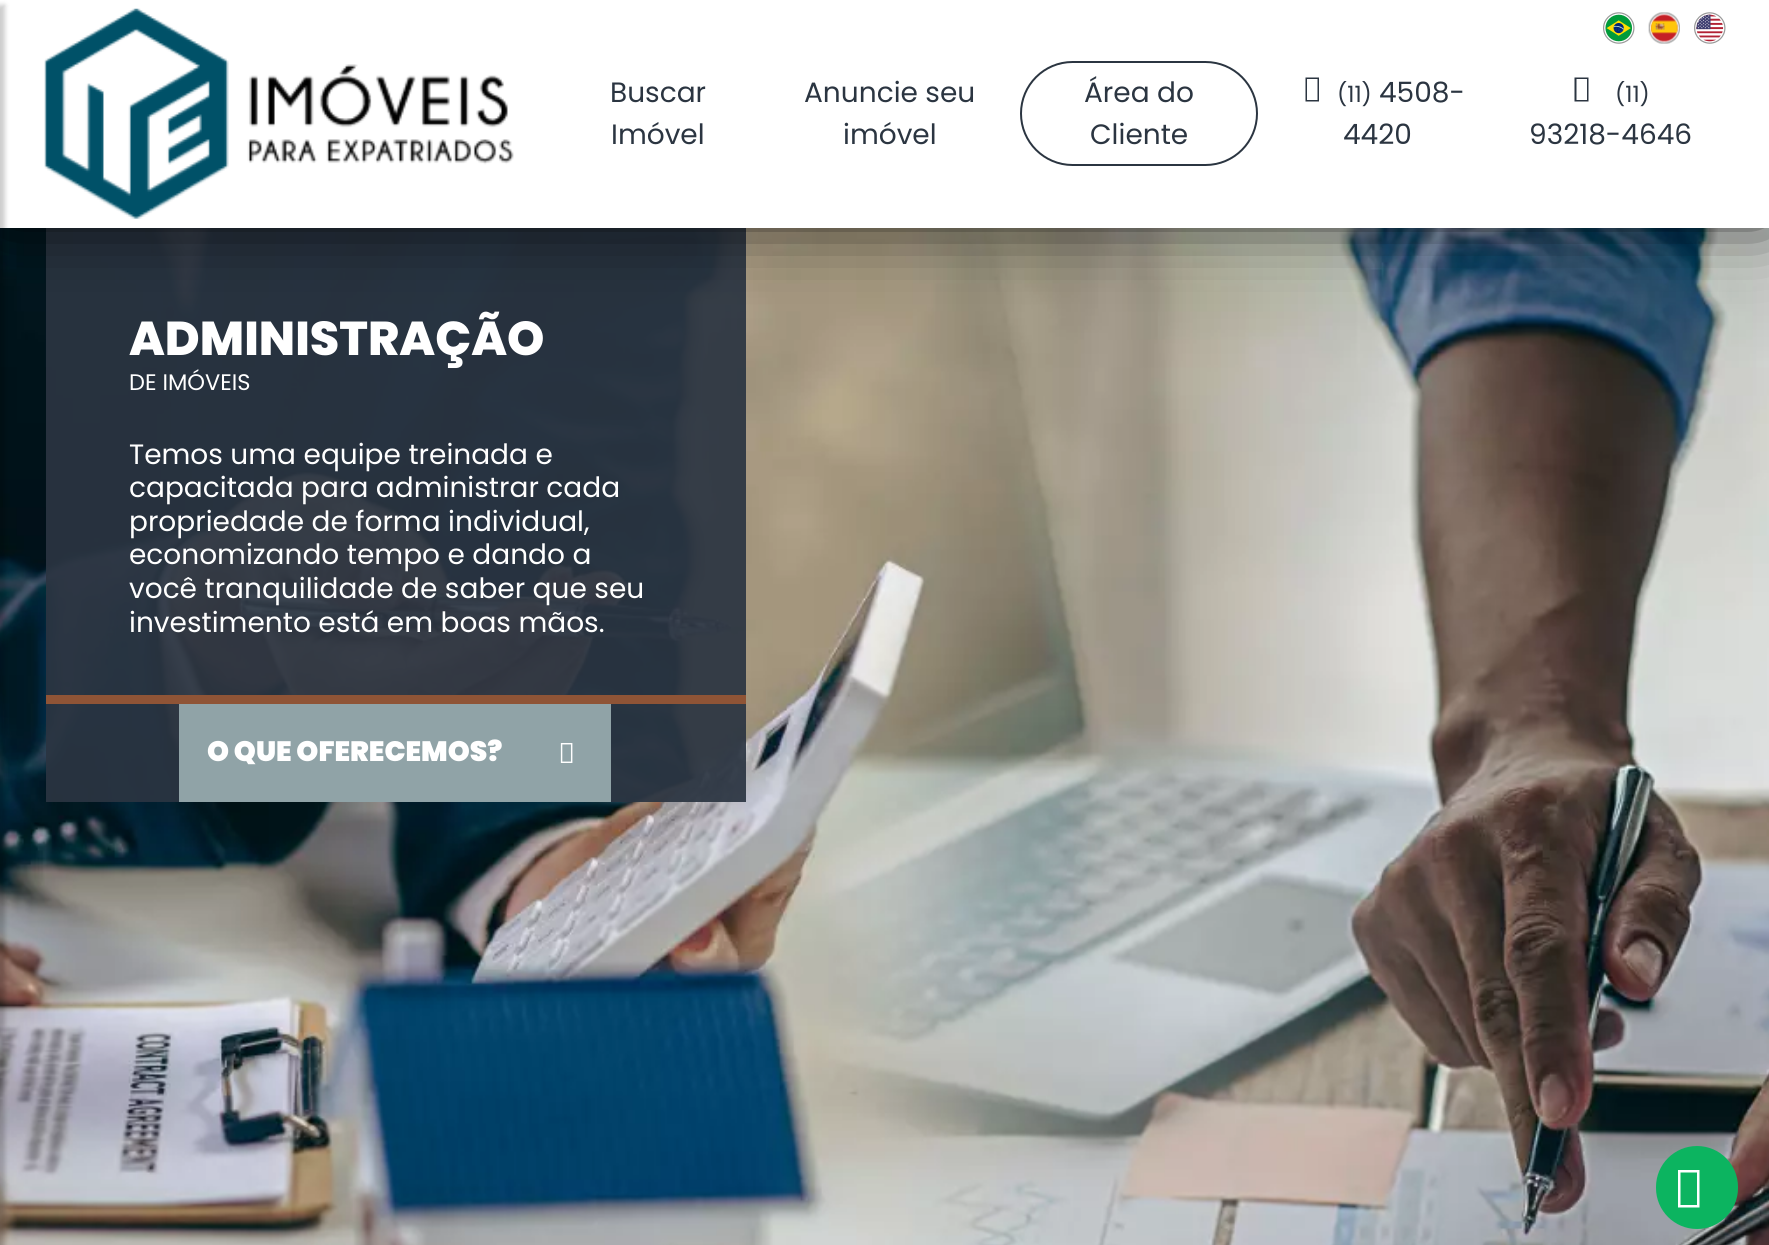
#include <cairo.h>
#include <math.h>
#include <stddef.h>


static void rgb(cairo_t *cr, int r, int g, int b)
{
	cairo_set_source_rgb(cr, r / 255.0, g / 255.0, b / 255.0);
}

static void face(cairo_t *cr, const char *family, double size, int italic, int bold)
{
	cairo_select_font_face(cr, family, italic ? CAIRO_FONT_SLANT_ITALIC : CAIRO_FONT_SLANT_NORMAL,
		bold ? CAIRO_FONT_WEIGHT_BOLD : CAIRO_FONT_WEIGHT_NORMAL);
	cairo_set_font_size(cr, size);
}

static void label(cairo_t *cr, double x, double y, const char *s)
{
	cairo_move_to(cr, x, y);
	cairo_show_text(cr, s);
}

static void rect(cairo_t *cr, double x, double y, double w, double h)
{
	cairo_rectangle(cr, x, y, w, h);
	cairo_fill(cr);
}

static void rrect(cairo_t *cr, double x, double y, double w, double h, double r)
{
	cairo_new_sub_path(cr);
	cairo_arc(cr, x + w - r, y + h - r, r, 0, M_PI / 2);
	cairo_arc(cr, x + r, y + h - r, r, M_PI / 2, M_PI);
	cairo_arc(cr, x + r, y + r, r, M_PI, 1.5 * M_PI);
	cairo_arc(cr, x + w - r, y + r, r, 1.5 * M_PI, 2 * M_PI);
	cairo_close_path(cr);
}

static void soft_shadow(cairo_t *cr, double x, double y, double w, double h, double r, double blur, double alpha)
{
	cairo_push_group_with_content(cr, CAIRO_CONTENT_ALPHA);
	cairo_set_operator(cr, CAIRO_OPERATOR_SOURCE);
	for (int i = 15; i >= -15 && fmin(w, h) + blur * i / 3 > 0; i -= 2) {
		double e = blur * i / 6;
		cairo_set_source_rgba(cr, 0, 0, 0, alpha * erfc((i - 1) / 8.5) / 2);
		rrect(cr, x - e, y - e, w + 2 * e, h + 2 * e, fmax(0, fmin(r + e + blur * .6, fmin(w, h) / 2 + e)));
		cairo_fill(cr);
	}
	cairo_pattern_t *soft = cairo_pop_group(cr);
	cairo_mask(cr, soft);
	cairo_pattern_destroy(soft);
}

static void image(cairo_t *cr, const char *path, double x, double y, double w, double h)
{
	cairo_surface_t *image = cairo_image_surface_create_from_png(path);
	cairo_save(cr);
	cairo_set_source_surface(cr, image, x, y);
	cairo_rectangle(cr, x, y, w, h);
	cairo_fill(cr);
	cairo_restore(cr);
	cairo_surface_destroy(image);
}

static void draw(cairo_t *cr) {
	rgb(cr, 255, 255, 255);
	cairo_paint(cr);
	image(cr, "image4.png", 0, 228, 1769, 1017);
	cairo_set_source_rgba(cr, 0.169, 0.208, 0.255, 0.92);
	rect(cr, 46, 228, 700, 574);
	rgb(cr, 0, 0, 0);
	soft_shadow(cr, 4, -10, 1765, 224, 0, 36, 1);
	rgb(cr, 255, 255, 255);
	rect(cr, 0, 0, 1769, 228);
	rgb(cr, 0, 0, 0);
	soft_shadow(cr, -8, 5, 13, 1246, 0, 2.5, 0.2);
	image(cr, "image0.png", 44, 8, 470, 211);
	face(cr, "Poppins", 28, 0, 0);
	rgb(cr, 43, 53, 65);
	label(cr, 610, 102, "Buscar");
	label(cr, 611, 144, "Imóvel");
	label(cr, 804, 102, "Anuncie seu");
	label(cr, 843, 144, "imóvel");
	rrect(cr, 1021, 62, 236, 103, 51.5);
	cairo_stroke(cr);
	label(cr, 1084, 102, "Área do");
	label(cr, 1090, 144, "Cliente");
	cairo_new_path(cr);
	cairo_move_to(cr, 1319, 101.5);
	cairo_line_to(cr, 1319, 77.5);
	cairo_line_to(cr, 1305.5, 77.5);
	cairo_line_to(cr, 1305.5, 101.5);
	cairo_close_path(cr);
	cairo_move_to(cr, 1317.5, 100);
	cairo_line_to(cr, 1307, 100);
	cairo_line_to(cr, 1307, 79);
	cairo_line_to(cr, 1317.5, 79);
	cairo_close_path(cr);
	cairo_fill(cr);
	face(cr, "Poppins", 22.5, 0, 0);
	label(cr, 1337, 102, "(11)");
	face(cr, "Poppins", 28, 0, 0);
	label(cr, 1379, 102, "4508-");
	label(cr, 1343, 144, "4420");
	image(cr, "image1.png", 1603, 12, 32, 32);
	image(cr, "image2.png", 1648, 12, 32, 32);
	image(cr, "image3.png", 1694, 12, 32, 32);
	cairo_new_path(cr);
	cairo_move_to(cr, 1574.5, 101.5);
	cairo_line_to(cr, 1574.5, 77.5);
	cairo_line_to(cr, 1588.5, 77.5);
	cairo_line_to(cr, 1588.5, 101.5);
	cairo_close_path(cr);
	cairo_move_to(cr, 1576.5, 100);
	cairo_line_to(cr, 1587, 100);
	cairo_line_to(cr, 1587, 79);
	cairo_line_to(cr, 1576.5, 79);
	cairo_close_path(cr);
	cairo_fill(cr);
	face(cr, "Poppins", 22.5, 0, 0);
	label(cr, 1615, 102, "(11)");
	face(cr, "Poppins", 28, 0, 0);
	label(cr, 1529, 144, "93218-4646");
	face(cr, "Poppins ExtraBold", 47.5, 0, 0);
	rgb(cr, 255, 255, 255);
	label(cr, 129, 355, "ADMINISTRAÇÃO");
	face(cr, "Poppins", 22.5, 0, 0);
	label(cr, 129, 390, "DE IMÓVEIS");
	face(cr, "Poppins", 28, 0, 0);
	label(cr, 129, 464, "Temos uma equipe treinada e");
	label(cr, 129, 497, "capacitada para administrar cada");
	label(cr, 129, 531, "propriedade de forma individual,");
	label(cr, 129, 564, "economizando tempo e dando a");
	label(cr, 129, 598, "você tranquilidade de saber que seu");
	label(cr, 129, 632, "investimento está em boas mãos.");
	rgb(cr, 143, 84, 54);
	rect(cr, 46, 695, 700, 9);
	rgb(cr, 144, 163, 167);
	rect(cr, 179, 704, 432, 98);
	face(cr, "Poppins Black", 28, 0, 0);
	rgb(cr, 255, 255, 255);
	label(cr, 207, 761, "O QUE OFERECEMOS?");
	image(cr, "image5.png", 560, 743, 13, 20);
	rgb(cr, 12, 180, 96);
	rrect(cr, 1656, 1146, 82, 83, 41);
	cairo_fill(cr);
	rgb(cr, 255, 255, 255);
	cairo_new_path(cr);
	cairo_move_to(cr, 1678, 1207.5);
	cairo_line_to(cr, 1678, 1170);
	cairo_line_to(cr, 1699.5, 1170);
	cairo_line_to(cr, 1699.5, 1207.5);
	cairo_close_path(cr);
	cairo_move_to(cr, 1680.5, 1205);
	cairo_line_to(cr, 1697, 1205);
	cairo_line_to(cr, 1697, 1172.5);
	cairo_line_to(cr, 1680.5, 1172.5);
	cairo_close_path(cr);
	cairo_fill(cr);
}

int main(void) {
	cairo_surface_t *surface = cairo_image_surface_create(CAIRO_FORMAT_RGB24, 1769, 1245);
	cairo_t *cr = cairo_create(surface);
	cairo_font_options_t *options = cairo_font_options_create();
	cairo_font_options_set_hint_metrics(options, CAIRO_HINT_METRICS_OFF);
	cairo_font_options_set_hint_style(options, CAIRO_HINT_STYLE_NONE);
	cairo_set_font_options(cr, options);
	cairo_set_miter_limit(cr, 4);
	draw(cr);
	cairo_surface_write_to_png(surface, "render.png");
	cairo_font_options_destroy(options);
	cairo_destroy(cr);
	cairo_surface_destroy(surface);
	return 0;
}
